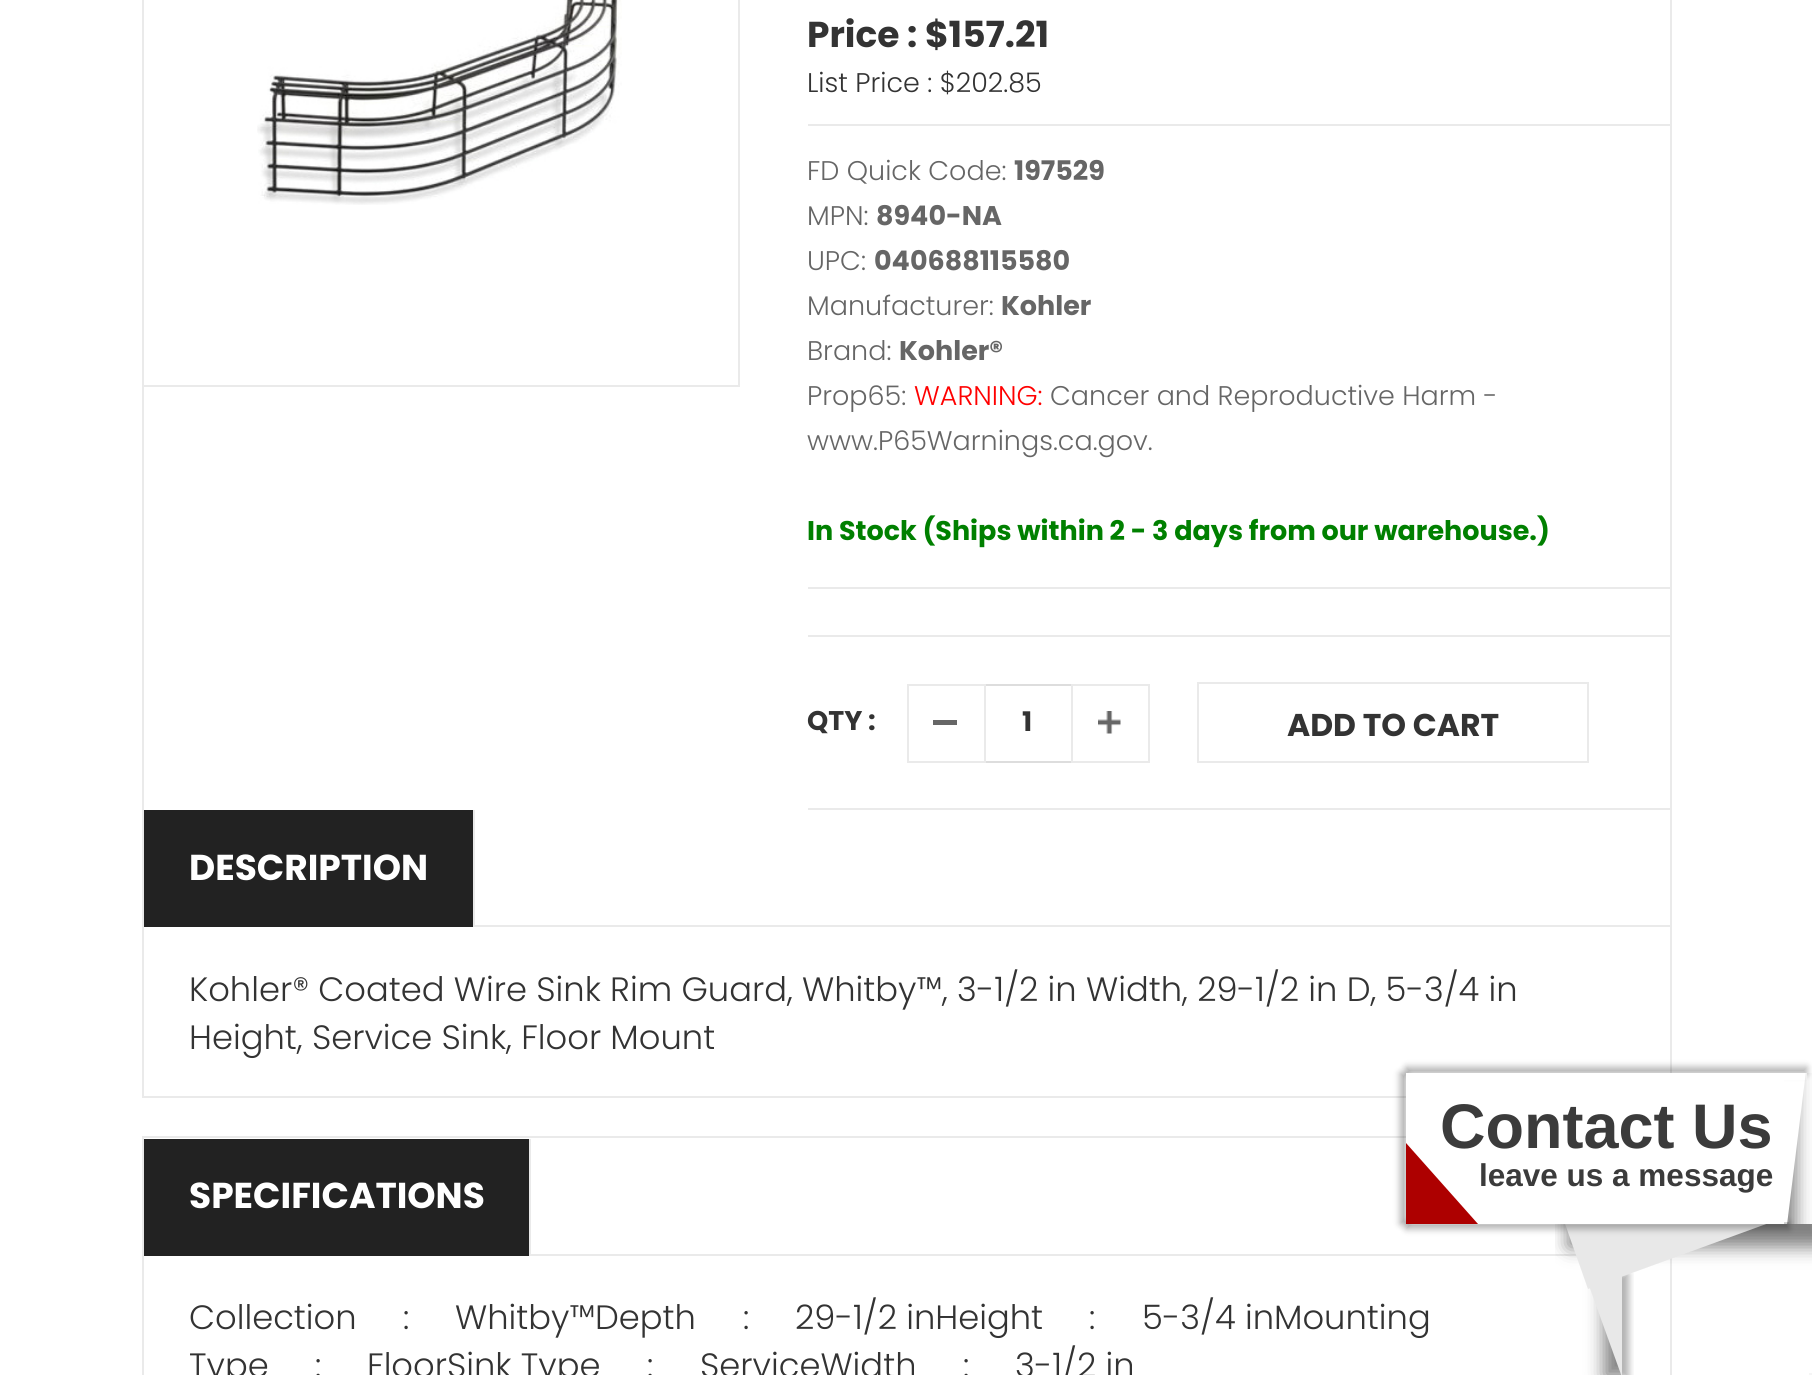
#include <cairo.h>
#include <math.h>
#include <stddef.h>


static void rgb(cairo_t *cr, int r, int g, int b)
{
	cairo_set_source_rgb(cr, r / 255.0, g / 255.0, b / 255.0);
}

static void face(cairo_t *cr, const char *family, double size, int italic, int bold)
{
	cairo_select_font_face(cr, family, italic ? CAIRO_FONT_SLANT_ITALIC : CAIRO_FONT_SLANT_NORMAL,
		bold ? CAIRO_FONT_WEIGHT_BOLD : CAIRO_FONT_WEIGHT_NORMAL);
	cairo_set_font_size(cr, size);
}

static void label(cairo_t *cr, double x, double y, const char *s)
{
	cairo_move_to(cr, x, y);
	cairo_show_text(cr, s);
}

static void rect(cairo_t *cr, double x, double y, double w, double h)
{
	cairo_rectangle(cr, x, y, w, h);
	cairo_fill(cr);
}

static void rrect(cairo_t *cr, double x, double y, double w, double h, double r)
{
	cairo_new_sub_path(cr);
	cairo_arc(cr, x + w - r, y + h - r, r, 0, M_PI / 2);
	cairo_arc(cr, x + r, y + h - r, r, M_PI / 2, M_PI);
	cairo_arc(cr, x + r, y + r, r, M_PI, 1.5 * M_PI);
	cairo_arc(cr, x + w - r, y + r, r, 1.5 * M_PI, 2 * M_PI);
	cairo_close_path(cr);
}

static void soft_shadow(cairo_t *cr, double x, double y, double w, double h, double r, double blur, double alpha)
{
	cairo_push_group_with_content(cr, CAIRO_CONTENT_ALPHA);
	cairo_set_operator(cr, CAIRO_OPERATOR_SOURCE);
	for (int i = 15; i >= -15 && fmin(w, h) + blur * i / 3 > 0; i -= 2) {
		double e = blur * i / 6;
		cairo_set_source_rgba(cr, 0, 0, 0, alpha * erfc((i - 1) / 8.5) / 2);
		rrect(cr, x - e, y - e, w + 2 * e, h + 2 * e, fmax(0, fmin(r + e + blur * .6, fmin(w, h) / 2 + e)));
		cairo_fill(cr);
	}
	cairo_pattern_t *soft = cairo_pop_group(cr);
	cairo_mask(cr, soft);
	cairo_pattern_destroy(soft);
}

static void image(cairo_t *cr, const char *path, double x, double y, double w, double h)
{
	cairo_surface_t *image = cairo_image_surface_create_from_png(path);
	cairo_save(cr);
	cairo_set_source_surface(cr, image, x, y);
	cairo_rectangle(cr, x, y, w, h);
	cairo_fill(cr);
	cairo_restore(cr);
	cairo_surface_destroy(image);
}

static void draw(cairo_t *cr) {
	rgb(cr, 255, 255, 255);
	cairo_paint(cr);
	cairo_rectangle(cr, 143, -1, 596, 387);
	rgb(cr, 234, 234, 234);
	cairo_stroke(cr);
	image(cr, "image0.png", 257, 0, 365, 205);
	face(cr, "Poppins", 36, 0, 1);
	rgb(cr, 51, 51, 51);
	label(cr, 807, 47, "Price : $157.21");
	face(cr, "Poppins Light", 27, 0, 0);
	label(cr, 807, 92, "List Price : $202.85");
	rgb(cr, 234, 234, 234);
	rect(cr, 808, 124, 864, 2);
	rect(cr, 808, 587, 864, 2);
	rgb(cr, 102, 102, 102);
	label(cr, 807, 180, "FD Quick Code:");
	face(cr, "Poppins", 27, 0, 1);
	label(cr, 1014, 180, "197529");
	face(cr, "Poppins Light", 27, 0, 0);
	label(cr, 807, 225, "MPN:");
	face(cr, "Poppins", 27, 0, 1);
	label(cr, 876, 225, "8940-NA");
	face(cr, "Poppins Light", 27, 0, 0);
	label(cr, 807, 270, "UPC:");
	face(cr, "Poppins", 27, 0, 1);
	label(cr, 874, 270, "040688115580");
	face(cr, "Poppins Light", 27, 0, 0);
	label(cr, 807, 315, "Manufacturer:");
	face(cr, "Poppins", 27, 0, 1);
	label(cr, 1001, 315, "Kohler");
	face(cr, "Poppins Light", 27, 0, 0);
	label(cr, 807, 360, "Brand:");
	face(cr, "Poppins", 27, 0, 1);
	label(cr, 899, 360, "Kohler®");
	face(cr, "Poppins Light", 27, 0, 0);
	label(cr, 807, 405, "Prop65:");
	rgb(cr, 255, 0, 0);
	label(cr, 914, 405, "WARNING:");
	rgb(cr, 102, 102, 102);
	label(cr, 1050, 405, "Cancer and Reproductive Harm -");
	label(cr, 807, 450, "www.P65Warnings.ca.gov.");
	face(cr, "Poppins", 27, 0, 1);
	rgb(cr, 0, 128, 0);
	label(cr, 807, 540, "In Stock (Ships within 2 - 3 days from our warehouse.)");
	rgb(cr, 234, 234, 234);
	rect(cr, 808, 635, 864, 2);
	rect(cr, 808, 808, 864, 2);
	rgb(cr, 51, 51, 51);
	label(cr, 807, 730, "QTY :");
	rgb(cr, 102, 102, 102);
	rect(cr, 933, 720, 24, 5);
	cairo_rectangle(cr, 908, 685, 77, 77);
	rgb(cr, 234, 234, 234);
	cairo_stroke(cr);
	rgb(cr, 221, 221, 221);
	rect(cr, 986, 684, 85, 2);
	rect(cr, 986, 761, 85, 2);
	rgb(cr, 51, 51, 51);
	label(cr, 1022, 731, "1");
	image(cr, "image1.png", 1098, 711, 23, 23);
	cairo_rectangle(cr, 1072, 685, 77, 77);
	rgb(cr, 234, 234, 234);
	cairo_stroke(cr);
	cairo_rectangle(cr, 1198, 683, 390, 79);
	cairo_stroke(cr);
	face(cr, "Poppins", 31.5, 0, 1);
	rgb(cr, 51, 51, 51);
	label(cr, 1287, 736, "ADD TO CART");
	cairo_rectangle(cr, 143, -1, 1528, 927);
	rgb(cr, 234, 234, 234);
	cairo_stroke(cr);
	rgb(cr, 34, 34, 34);
	rect(cr, 144, 810, 329, 117);
	rgb(cr, 234, 234, 234);
	rect(cr, 473, 810, 2, 117);
	face(cr, "Poppins", 36, 0, 1);
	rgb(cr, 255, 255, 255);
	label(cr, 189, 880, "DESCRIPTION");
	rgb(cr, 234, 234, 234);
	rect(cr, 1670, 927, 2, 146);
	rect(cr, 142, 1096, 1264, 2);
	rect(cr, 142, 927, 2, 171);
	face(cr, "Poppins Light", 33.75, 0, 0);
	rgb(cr, 51, 51, 51);
	label(cr, 189, 1001, "Kohler® Coated Wire Sink Rim Guard, Whitby™, 3-1/2 in Width, 29-1/2 in D, 5-3/4 in");
	label(cr, 189, 1049, "Height, Service Sink, Floor Mount");
	cairo_rectangle(cr, 143, 1137, 1528, 118);
	rgb(cr, 234, 234, 234);
	cairo_stroke(cr);
	rgb(cr, 34, 34, 34);
	rect(cr, 144, 1139, 385, 117);
	rgb(cr, 234, 234, 234);
	rect(cr, 529, 1139, 2, 117);
	face(cr, "Poppins", 36, 0, 1);
	rgb(cr, 255, 255, 255);
	label(cr, 189, 1208, "SPECIFICATIONS");
	rgb(cr, 234, 234, 234);
	rect(cr, 1670, 1256, 2, 119);
	rect(cr, 142, 1256, 2, 119);
	face(cr, "Poppins Light", 33.75, 0, 0);
	rgb(cr, 51, 51, 51);
	label(cr, 189, 1329, "Collection");
	label(cr, 403, 1329, ":");
	label(cr, 455, 1329, "Whitby™Depth");
	label(cr, 743, 1329, ":");
	label(cr, 795, 1329, "29-1/2 inHeight");
	label(cr, 1089, 1329, ":");
	label(cr, 1142, 1329, "5-3/4 inMounting");
	label(cr, 189, 1377, "Type");
	label(cr, 315, 1377, ":");
	label(cr, 367, 1377, "FloorSink Type");
	label(cr, 647, 1377, ":");
	label(cr, 700, 1377, "ServiceWidth");
	label(cr, 963, 1377, ":");
	label(cr, 1015, 1377, "3-1/2 in");
	cairo_save(cr);
	cairo_rectangle(cr, 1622, 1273, 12, 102);
	cairo_clip(cr);
	rgb(cr, 0, 0, 0);
	soft_shadow(cr, 1586, 1274, 43, 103, 0, 3.5, 0.3);
	cairo_restore(cr);
	cairo_save(cr);
	cairo_rectangle(cr, 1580, 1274, 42, 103);
	cairo_clip(cr);
	rgb(cr, 0, 0, 0);
	soft_shadow(cr, 1604, 1274, 39, 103, 0, 9, 0.5);
	cairo_restore(cr);
	cairo_save(cr);
	cairo_rectangle(cr, 1580, 1274, 42, 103);
	cairo_clip(cr);
	rgb(cr, 232, 232, 232);
	cairo_new_path(cr);
	cairo_move_to(cr, 1588, 1283);
	cairo_line_to(cr, 1624, 1270);
	cairo_line_to(cr, 1659, 1367);
	cairo_line_to(cr, 1623, 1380);
	cairo_close_path(cr);
	cairo_fill(cr);
	cairo_restore(cr);
	cairo_save(cr);
	cairo_rectangle(cr, 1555, 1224, 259, 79);
	cairo_clip(cr);
	rgb(cr, 0, 0, 0);
	soft_shadow(cr, 1568, 1175, 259, 72, 0, 9, 0.5);
	cairo_restore(cr);
	cairo_save(cr);
	cairo_rectangle(cr, 1555, 1224, 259, 79);
	cairo_clip(cr);
	rgb(cr, 232, 232, 232);
	cairo_new_path(cr);
	cairo_move_to(cr, 1564, 1221);
	cairo_line_to(cr, 1807, 1132);
	cairo_line_to(cr, 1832, 1200);
	cairo_line_to(cr, 1588, 1289);
	cairo_close_path(cr);
	cairo_fill(cr);
	cairo_restore(cr);
	cairo_save(cr);
	cairo_rectangle(cr, 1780, 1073, 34, 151);
	cairo_clip(cr);
	rgb(cr, 0, 0, 0);
	soft_shadow(cr, 1762, 1069, 34, 171, 0, 9, 0.5);
	cairo_restore(cr);
	cairo_save(cr);
	cairo_rectangle(cr, 1780, 1073, 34, 151);
	cairo_clip(cr);
	rgb(cr, 255, 255, 255);
	cairo_new_path(cr);
	cairo_move_to(cr, 1772, 1067);
	cairo_line_to(cr, 1806, 1071);
	cairo_line_to(cr, 1785, 1241);
	cairo_line_to(cr, 1751, 1237);
	cairo_close_path(cr);
	cairo_fill(cr);
	cairo_restore(cr);
	cairo_save(cr);
	cairo_set_fill_rule(cr, CAIRO_FILL_RULE_EVEN_ODD);
	cairo_new_path(cr);
	cairo_move_to(cr, 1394, 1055);
	cairo_line_to(cr, 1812, 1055);
	cairo_line_to(cr, 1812, 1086);
	cairo_line_to(cr, 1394, 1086);
	cairo_close_path(cr);
	cairo_move_to(cr, 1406, 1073);
	cairo_line_to(cr, 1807, 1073);
	cairo_line_to(cr, 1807, 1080);
	cairo_line_to(cr, 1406, 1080);
	cairo_close_path(cr);
	cairo_clip(cr);
	rgb(cr, 0, 0, 0);
	soft_shadow(cr, 1406, 1067, 401, 7, 0, 3.5, 0.3);
	cairo_restore(cr);
	rgb(cr, 0, 0, 0);
	soft_shadow(cr, 1400, 1073, 7, 151, 0, 3.5, 0.3);
	cairo_save(cr);
	cairo_set_fill_rule(cr, CAIRO_FILL_RULE_EVEN_ODD);
	cairo_new_path(cr);
	cairo_move_to(cr, 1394, 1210);
	cairo_line_to(cr, 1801, 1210);
	cairo_line_to(cr, 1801, 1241);
	cairo_line_to(cr, 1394, 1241);
	cairo_close_path(cr);
	cairo_move_to(cr, 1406, 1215);
	cairo_line_to(cr, 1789, 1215);
	cairo_line_to(cr, 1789, 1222);
	cairo_line_to(cr, 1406, 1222);
	cairo_close_path(cr);
	cairo_clip(cr);
	soft_shadow(cr, 1406, 1222, 383, 7, 0, 3.5, 0.3);
	cairo_restore(cr);
	rgb(cr, 255, 255, 255);
	rect(cr, 1406, 1073, 378, 151);
	face(cr, "Liberation Sans", 63, 0, 1);
	rgb(cr, 59, 59, 59);
	label(cr, 1440, 1148, "Contact Us");
	rgb(cr, 173, 0, 0);
	cairo_new_path(cr);
	cairo_move_to(cr, 1406, 1224);
	cairo_line_to(cr, 1406, 1143);
	cairo_line_to(cr, 1478, 1224);
	cairo_close_path(cr);
	cairo_fill(cr);
	face(cr, "Liberation Sans", 31.5, 0, 1);
	rgb(cr, 59, 59, 59);
	label(cr, 1479, 1186, "leave us a message");
	rgb(cr, 245, 245, 245);
	rect(cr, 1809, 1373, 3, 2);
}

int main(void) {
	cairo_surface_t *surface = cairo_image_surface_create(CAIRO_FORMAT_RGB24, 1812, 1375);
	cairo_t *cr = cairo_create(surface);
	cairo_font_options_t *options = cairo_font_options_create();
	cairo_font_options_set_hint_metrics(options, CAIRO_HINT_METRICS_OFF);
	cairo_font_options_set_hint_style(options, CAIRO_HINT_STYLE_NONE);
	cairo_set_font_options(cr, options);
	cairo_set_miter_limit(cr, 4);
	draw(cr);
	cairo_surface_write_to_png(surface, "render.png");
	cairo_font_options_destroy(options);
	cairo_destroy(cr);
	cairo_surface_destroy(surface);
	return 0;
}
